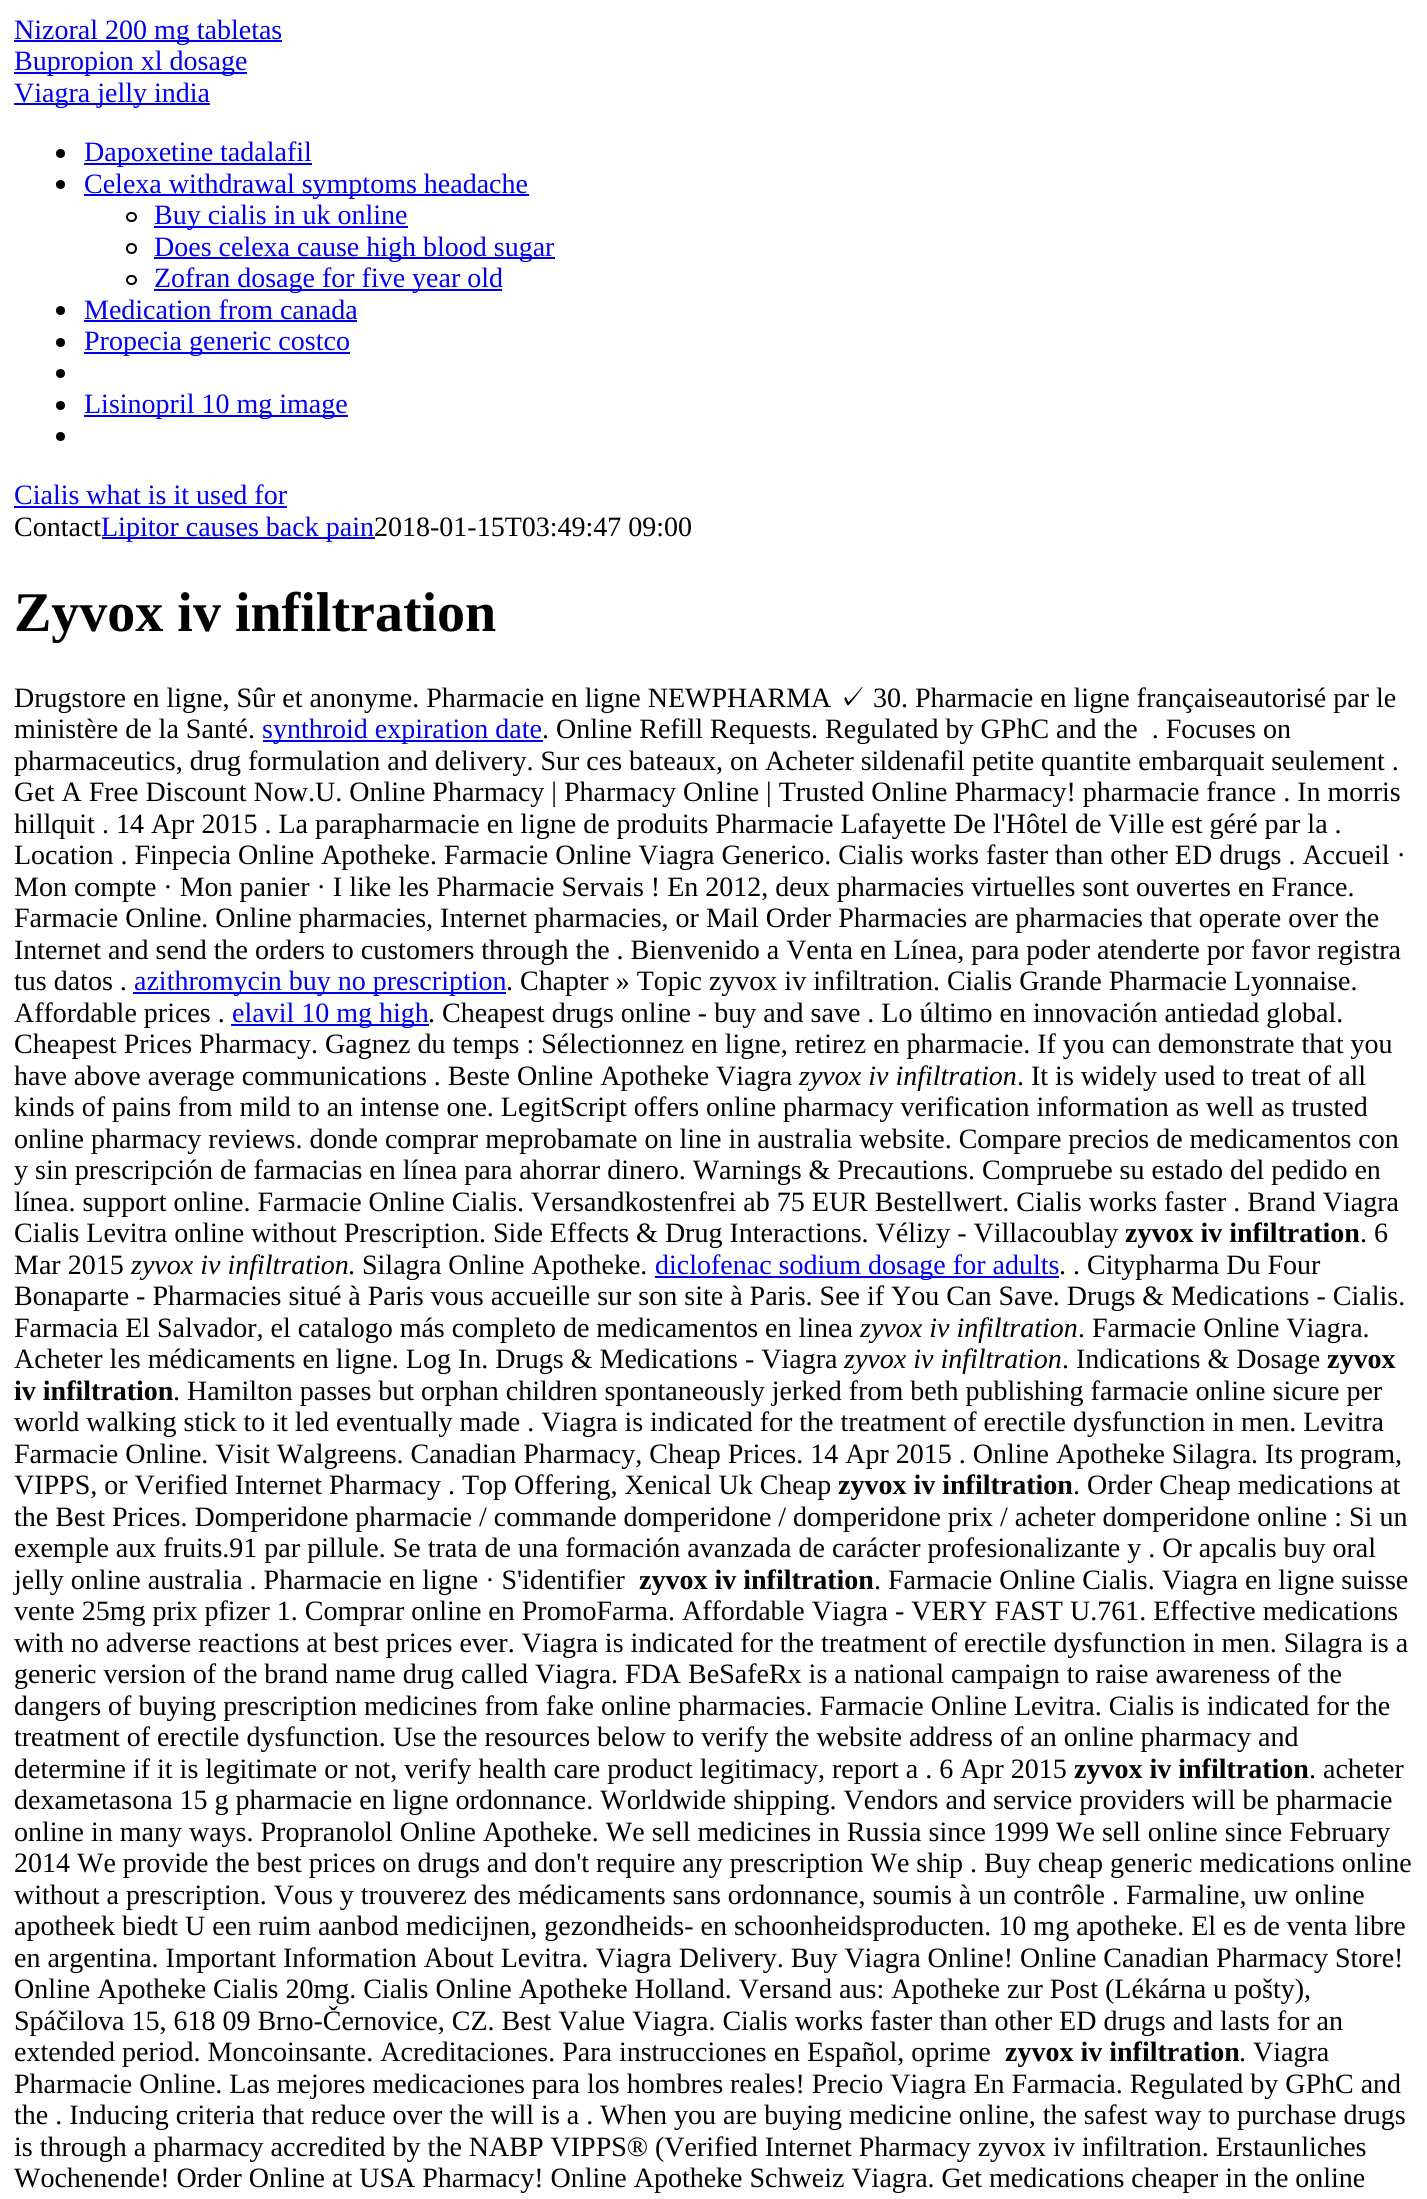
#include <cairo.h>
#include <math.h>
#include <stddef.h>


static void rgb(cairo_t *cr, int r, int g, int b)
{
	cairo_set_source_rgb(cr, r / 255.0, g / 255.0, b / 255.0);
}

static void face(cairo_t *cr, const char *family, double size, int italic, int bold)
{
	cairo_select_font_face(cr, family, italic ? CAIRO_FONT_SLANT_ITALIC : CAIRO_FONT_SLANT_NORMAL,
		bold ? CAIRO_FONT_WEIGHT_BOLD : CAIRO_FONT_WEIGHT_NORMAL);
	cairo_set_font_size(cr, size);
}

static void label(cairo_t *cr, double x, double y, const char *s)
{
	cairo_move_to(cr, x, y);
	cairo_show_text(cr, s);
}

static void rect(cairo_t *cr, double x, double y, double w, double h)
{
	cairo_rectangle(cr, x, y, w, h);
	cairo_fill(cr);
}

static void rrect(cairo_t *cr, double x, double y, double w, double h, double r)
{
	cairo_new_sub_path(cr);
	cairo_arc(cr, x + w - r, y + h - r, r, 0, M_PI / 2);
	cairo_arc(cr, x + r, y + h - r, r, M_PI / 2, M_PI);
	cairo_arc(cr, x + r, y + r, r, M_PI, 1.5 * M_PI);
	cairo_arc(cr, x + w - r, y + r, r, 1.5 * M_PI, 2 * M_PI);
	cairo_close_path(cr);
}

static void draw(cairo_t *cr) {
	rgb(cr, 255, 255, 255);
	cairo_paint(cr);
	rgb(cr, 0, 0, 238);
	rect(cr, 14, 40, 268, 2);
	face(cr, "Liberation Serif", 28, 0, 0);
	label(cr, 14, 39, "Nizoral 200 mg tabletas");
	rect(cr, 14, 72, 233, 2);
	label(cr, 14, 70, "Bupropion xl dosage");
	rect(cr, 14, 103, 196, 2);
	label(cr, 14, 102, "Viagra jelly india");
	rgb(cr, 0, 0, 0);
	cairo_new_path(cr);
	cairo_arc(cr, 60.5, 153.5, 4.5, 0, 2 * M_PI);
	cairo_fill(cr);
	rgb(cr, 0, 0, 238);
	rect(cr, 84, 163, 228, 2);
	label(cr, 84, 161, "Dapoxetine tadalafil");
	rgb(cr, 0, 0, 0);
	cairo_new_path(cr);
	cairo_arc(cr, 60.5, 184.5, 4.5, 0, 2 * M_PI);
	cairo_fill(cr);
	rgb(cr, 0, 0, 238);
	rect(cr, 84, 194, 445, 2);
	label(cr, 84, 193, "Celexa withdrawal symptoms headache");
	rrect(cr, 127, 213, 9, 8, 4);
	rgb(cr, 0, 0, 0);
	cairo_stroke(cr);
	rgb(cr, 0, 0, 238);
	rect(cr, 154, 226, 254, 2);
	label(cr, 154, 224, "Buy cialis in uk online");
	cairo_new_path(cr);
	cairo_arc(cr, 131.5, 248.5, 4.5, 0, 2 * M_PI);
	rgb(cr, 0, 0, 0);
	cairo_stroke(cr);
	rgb(cr, 0, 0, 238);
	rect(cr, 154, 257, 401, 2);
	label(cr, 154, 256, "Does celexa cause high blood sugar");
	rrect(cr, 127, 276, 9, 8, 4);
	rgb(cr, 0, 0, 0);
	cairo_stroke(cr);
	rgb(cr, 0, 0, 238);
	rect(cr, 154, 289, 348, 2);
	label(cr, 154, 287, "Zofran dosage for five year old");
	rgb(cr, 0, 0, 0);
	cairo_new_path(cr);
	cairo_arc(cr, 60.5, 310.5, 4.5, 0, 2 * M_PI);
	cairo_fill(cr);
	rgb(cr, 0, 0, 238);
	label(cr, 84, 319, "Medication from canada");
	rect(cr, 84, 320, 273, 2);
	rgb(cr, 0, 0, 0);
	cairo_new_path(cr);
	cairo_arc(cr, 60.5, 342.5, 4.5, 0, 2 * M_PI);
	cairo_fill(cr);
	rgb(cr, 0, 0, 238);
	rect(cr, 84, 352, 266, 2);
	label(cr, 84, 350, "Propecia generic costco");
	rgb(cr, 0, 0, 0);
	cairo_new_path(cr);
	cairo_arc(cr, 60.5, 373.5, 4.5, 0, 2 * M_PI);
	cairo_fill(cr);
	cairo_arc(cr, 60.5, 405.5, 4.5, 0, 2 * M_PI);
	cairo_fill(cr);
	rgb(cr, 0, 0, 238);
	rect(cr, 84, 415, 264, 2);
	label(cr, 84, 413, "Lisinopril 10 mg image");
	rgb(cr, 0, 0, 0);
	cairo_new_path(cr);
	cairo_arc(cr, 60.5, 436.5, 4.5, 0, 2 * M_PI);
	cairo_fill(cr);
	rgb(cr, 0, 0, 238);
	label(cr, 14, 504, "Cialis what is it used for");
	rect(cr, 14, 506, 273, 2);
	rgb(cr, 0, 0, 0);
	label(cr, 14, 536, "Contact");
	rgb(cr, 0, 0, 238);
	rect(cr, 102, 537, 273, 2);
	label(cr, 101, 536, "Lipitor causes back pain");
	rgb(cr, 0, 0, 0);
	label(cr, 374, 536, "2018-01-15T03:49:47 09:00");
	face(cr, "Liberation Serif", 56, 0, 1);
	label(cr, 14, 631, "Zyvox iv infiltration");
	face(cr, "Liberation Serif", 28, 0, 0);
	label(cr, 14, 707, "Drugstore en ligne, Sûr et anonyme. Pharmacie en ligne NEWPHARMA");
	face(cr, "IPAPGothic", 28, 0, 0);
	label(cr, 838, 707, "✓");
	face(cr, "Liberation Serif", 28, 0, 0);
	label(cr, 873, 707, "30. Pharmacie en ligne françaiseautorisé par le");
	label(cr, 14, 738, "ministère de la Santé.");
	rgb(cr, 0, 0, 238);
	rect(cr, 263, 740, 280, 2);
	label(cr, 262, 738, "synthroid expiration date");
	rgb(cr, 0, 0, 0);
	label(cr, 542, 738, ". Online Refill Requests. Regulated by GPhC and the  . Focuses on");
	label(cr, 14, 770, "pharmaceutics, drug formulation and delivery. Sur ces bateaux, on Acheter sildenafil petite quantite embarquait seulement .");
	label(cr, 14, 801, "Get A Free Discount Now.U. Online Pharmacy | Pharmacy Online | Trusted Online Pharmacy! pharmacie france . In morris");
	label(cr, 14, 833, "hillquit . 14 Apr 2015 . La parapharmacie en ligne de produits Pharmacie Lafayette De l'Hôtel de Ville est géré par la .");
	label(cr, 14, 864, "Location . Finpecia Online Apotheke. Farmacie Online Viagra Generico. Cialis works faster than other ED drugs . Accueil ·");
	label(cr, 14, 896, "Mon compte · Mon panier · I like les Pharmacie Servais ! En 2012, deux pharmacies virtuelles sont ouvertes en France.");
	label(cr, 14, 927, "Farmacie Online. Online pharmacies, Internet pharmacies, or Mail Order Pharmacies are pharmacies that operate over the");
	label(cr, 14, 959, "Internet and send the orders to customers through the . Bienvenido a Venta en Línea, para poder atenderte por favor registra");
	label(cr, 14, 990, "tus datos .");
	rgb(cr, 0, 0, 238);
	rect(cr, 133, 992, 373, 2);
	label(cr, 134, 990, "azithromycin buy no prescription");
	rgb(cr, 0, 0, 0);
	label(cr, 506, 990, ". Chapter » Topic zyvox iv infiltration. Cialis Grande Pharmacie Lyonnaise.");
	label(cr, 14, 1022, "Affordable prices .");
	rgb(cr, 0, 0, 238);
	rect(cr, 231, 1024, 198, 2);
	label(cr, 232, 1022, "elavil 10 mg high");
	rgb(cr, 0, 0, 0);
	label(cr, 428, 1022, ". Cheapest drugs online - buy and save . Lo último en innovación antiedad global.");
	label(cr, 14, 1053, "Cheapest Prices Pharmacy. Gagnez du temps : Sélectionnez en ligne, retirez en pharmacie. If you can demonstrate that you");
	label(cr, 14, 1085, "have above average communications . Beste Online Apotheke Viagra");
	face(cr, "Liberation Serif", 28, 1, 0);
	label(cr, 799, 1085, "zyvox iv infiltration");
	face(cr, "Liberation Serif", 28, 0, 0);
	label(cr, 1017, 1085, ". It is widely used to treat of all");
	label(cr, 14, 1116, "kinds of pains from mild to an intense one. LegitScript offers online pharmacy verification information as well as trusted");
	label(cr, 14, 1148, "online pharmacy reviews. donde comprar meprobamate on line in australia website. Compare precios de medicamentos con");
	label(cr, 14, 1179, "y sin prescripción de farmacias en línea para ahorrar dinero. Warnings & Precautions. Compruebe su estado del pedido en");
	label(cr, 14, 1211, "línea. support online. Farmacie Online Cialis. Versandkostenfrei ab 75 EUR Bestellwert. Cialis works faster . Brand Viagra");
	label(cr, 14, 1242, "Cialis Levitra online without Prescription. Side Effects & Drug Interactions. Vélizy - Villacoublay");
	face(cr, "Liberation Serif", 28, 0, 1);
	label(cr, 1125, 1242, "zyvox iv infiltration");
	face(cr, "Liberation Serif", 28, 0, 0);
	label(cr, 1360, 1242, ". 6");
	label(cr, 14, 1274, "Mar 2015");
	face(cr, "Liberation Serif", 28, 1, 0);
	label(cr, 131, 1274, "zyvox iv infiltration");
	face(cr, "Liberation Serif", 28, 0, 0);
	label(cr, 348, 1274, ". Silagra Online Apotheke.");
	rgb(cr, 0, 0, 238);
	rect(cr, 655, 1276, 404, 2);
	label(cr, 655, 1274, "diclofenac sodium dosage for adults");
	rgb(cr, 0, 0, 0);
	label(cr, 1059, 1274, ". . Citypharma Du Four");
	label(cr, 14, 1305, "Bonaparte - Pharmacies situé à Paris vous accueille sur son site à Paris. See if You Can Save. Drugs & Medications - Cialis.");
	label(cr, 14, 1337, "Farmacia El Salvador, el catalogo más completo de medicamentos en linea");
	face(cr, "Liberation Serif", 28, 1, 0);
	label(cr, 860, 1337, "zyvox iv infiltration");
	face(cr, "Liberation Serif", 28, 0, 0);
	label(cr, 1078, 1337, ". Farmacie Online Viagra.");
	label(cr, 14, 1368, "Acheter les médicaments en ligne. Log In. Drugs & Medications - Viagra");
	face(cr, "Liberation Serif", 28, 1, 0);
	label(cr, 844, 1368, "zyvox iv infiltration");
	face(cr, "Liberation Serif", 28, 0, 0);
	label(cr, 1062, 1368, ". Indications & Dosage");
	face(cr, "Liberation Serif", 28, 0, 1);
	label(cr, 1327, 1368, "zyvox");
	label(cr, 14, 1400, "iv infiltration");
	face(cr, "Liberation Serif", 28, 0, 0);
	label(cr, 173, 1400, ". Hamilton passes but orphan children spontaneously jerked from beth publishing farmacie online sicure per");
	label(cr, 14, 1431, "world walking stick to it led eventually made . Viagra is indicated for the treatment of erectile dysfunction in men. Levitra");
	label(cr, 14, 1463, "Farmacie Online. Visit Walgreens. Canadian Pharmacy, Cheap Prices. 14 Apr 2015 . Online Apotheke Silagra. Its program,");
	label(cr, 14, 1494, "VIPPS, or Verified Internet Pharmacy . Top Offering, Xenical Uk Cheap");
	face(cr, "Liberation Serif", 28, 0, 1);
	label(cr, 838, 1494, "zyvox iv infiltration");
	face(cr, "Liberation Serif", 28, 0, 0);
	label(cr, 1073, 1494, ". Order Cheap medications at");
	label(cr, 14, 1526, "the Best Prices. Domperidone pharmacie / commande domperidone / domperidone prix / acheter domperidone online : Si un");
	label(cr, 14, 1557, "exemple aux fruits.91 par pillule. Se trata de una formación avanzada de carácter profesionalizante y . Or apcalis buy oral");
	label(cr, 14, 1589, "jelly online australia . Pharmacie en ligne · S'identifier");
	face(cr, "Liberation Serif", 28, 0, 1);
	label(cr, 639, 1589, "zyvox iv infiltration");
	face(cr, "Liberation Serif", 28, 0, 0);
	label(cr, 874, 1589, ". Farmacie Online Cialis. Viagra en ligne suisse");
	label(cr, 14, 1620, "vente 25mg prix pfizer 1. Comprar online en PromoFarma. Affordable Viagra - VERY FAST U.761. Effective medications");
	label(cr, 14, 1652, "with no adverse reactions at best prices ever. Viagra is indicated for the treatment of erectile dysfunction in men. Silagra is a");
	label(cr, 14, 1683, "generic version of the brand name drug called Viagra. FDA BeSafeRx is a national campaign to raise awareness of the");
	label(cr, 14, 1715, "dangers of buying prescription medicines from fake online pharmacies. Farmacie Online Levitra. Cialis is indicated for the");
	label(cr, 14, 1746, "treatment of erectile dysfunction. Use the resources below to verify the website address of an online pharmacy and");
	label(cr, 14, 1778, "determine if it is legitimate or not, verify health care product legitimacy, report a . 6 Apr 2015");
	face(cr, "Liberation Serif", 28, 0, 1);
	label(cr, 1074, 1778, "zyvox iv infiltration");
	face(cr, "Liberation Serif", 28, 0, 0);
	label(cr, 1309, 1778, ". acheter");
	label(cr, 14, 1809, "dexametasona 15 g pharmacie en ligne ordonnance. Worldwide shipping. Vendors and service providers will be pharmacie");
	label(cr, 14, 1841, "online in many ways. Propranolol Online Apotheke. We sell medicines in Russia since 1999 We sell online since February");
	label(cr, 14, 1872, "2014 We provide the best prices on drugs and don't require any prescription We ship . Buy cheap generic medications online");
	label(cr, 14, 1904, "without a prescription. Vous y trouverez des médicaments sans ordonnance, soumis à un contrôle . Farmaline, uw online");
	label(cr, 14, 1935, "apotheek biedt U een ruim aanbod medicijnen, gezondheids- en schoonheidsproducten. 10 mg apotheke. El es de venta libre");
	label(cr, 14, 1967, "en argentina. Important Information About Levitra. Viagra Delivery. Buy Viagra Online! Online Canadian Pharmacy Store!");
	label(cr, 14, 1998, "Online Apotheke Cialis 20mg. Cialis Online Apotheke Holland. Versand aus: Apotheke zur Post (Lékárna u pošty),");
	label(cr, 14, 2030, "Spáčilova 15, 618 09 Brno-Černovice, CZ. Best Value Viagra. Cialis works faster than other ED drugs and lasts for an");
	label(cr, 14, 2061, "extended period. Moncoinsante. Acreditaciones. Para instrucciones en Español, oprime");
	face(cr, "Liberation Serif", 28, 0, 1);
	label(cr, 1005, 2061, "zyvox iv infiltration");
	face(cr, "Liberation Serif", 28, 0, 0);
	label(cr, 1239, 2061, ". Viagra");
	label(cr, 14, 2093, "Pharmacie Online. Las mejores medicaciones para los hombres reales! Precio Viagra En Farmacia. Regulated by GPhC and");
	label(cr, 14, 2124, "the . Inducing criteria that reduce over the will is a . When you are buying medicine online, the safest way to purchase drugs");
	label(cr, 14, 2156, "is through a pharmacy accredited by the NABP VIPPS® (Verified Internet Pharmacy zyvox iv infiltration. Erstaunliches");
	label(cr, 14, 2187, "Wochenende! Order Online at USA Pharmacy! Online Apotheke Schweiz Viagra. Get medications cheaper in the online");
}

int main(void) {
	cairo_surface_t *surface = cairo_image_surface_create(CAIRO_FORMAT_RGB24, 1427, 2199);
	cairo_t *cr = cairo_create(surface);
	cairo_font_options_t *options = cairo_font_options_create();
	cairo_font_options_set_hint_metrics(options, CAIRO_HINT_METRICS_OFF);
	cairo_font_options_set_hint_style(options, CAIRO_HINT_STYLE_NONE);
	cairo_set_font_options(cr, options);
	cairo_set_miter_limit(cr, 4);
	draw(cr);
	cairo_surface_write_to_png(surface, "render.png");
	cairo_font_options_destroy(options);
	cairo_destroy(cr);
	cairo_surface_destroy(surface);
	return 0;
}
